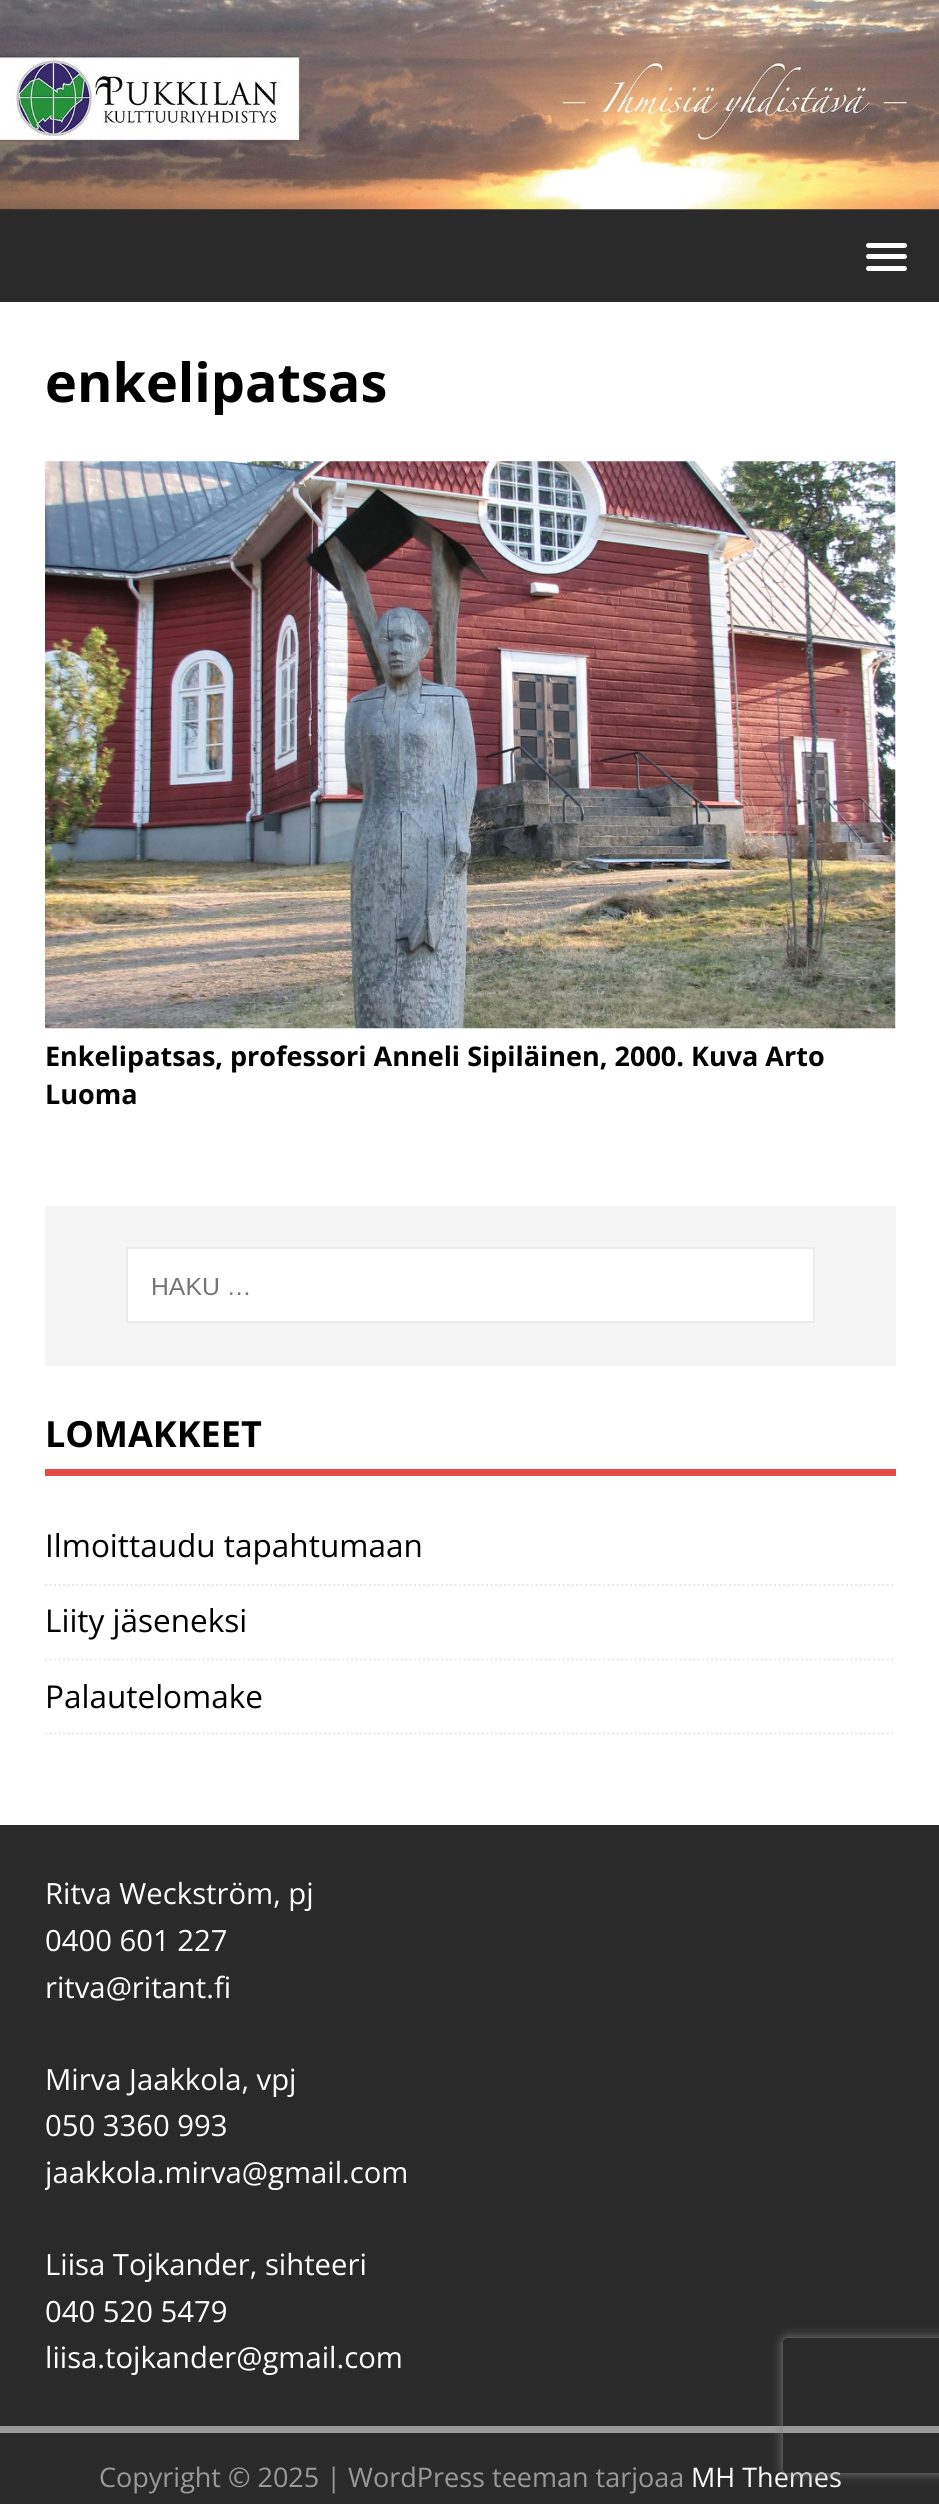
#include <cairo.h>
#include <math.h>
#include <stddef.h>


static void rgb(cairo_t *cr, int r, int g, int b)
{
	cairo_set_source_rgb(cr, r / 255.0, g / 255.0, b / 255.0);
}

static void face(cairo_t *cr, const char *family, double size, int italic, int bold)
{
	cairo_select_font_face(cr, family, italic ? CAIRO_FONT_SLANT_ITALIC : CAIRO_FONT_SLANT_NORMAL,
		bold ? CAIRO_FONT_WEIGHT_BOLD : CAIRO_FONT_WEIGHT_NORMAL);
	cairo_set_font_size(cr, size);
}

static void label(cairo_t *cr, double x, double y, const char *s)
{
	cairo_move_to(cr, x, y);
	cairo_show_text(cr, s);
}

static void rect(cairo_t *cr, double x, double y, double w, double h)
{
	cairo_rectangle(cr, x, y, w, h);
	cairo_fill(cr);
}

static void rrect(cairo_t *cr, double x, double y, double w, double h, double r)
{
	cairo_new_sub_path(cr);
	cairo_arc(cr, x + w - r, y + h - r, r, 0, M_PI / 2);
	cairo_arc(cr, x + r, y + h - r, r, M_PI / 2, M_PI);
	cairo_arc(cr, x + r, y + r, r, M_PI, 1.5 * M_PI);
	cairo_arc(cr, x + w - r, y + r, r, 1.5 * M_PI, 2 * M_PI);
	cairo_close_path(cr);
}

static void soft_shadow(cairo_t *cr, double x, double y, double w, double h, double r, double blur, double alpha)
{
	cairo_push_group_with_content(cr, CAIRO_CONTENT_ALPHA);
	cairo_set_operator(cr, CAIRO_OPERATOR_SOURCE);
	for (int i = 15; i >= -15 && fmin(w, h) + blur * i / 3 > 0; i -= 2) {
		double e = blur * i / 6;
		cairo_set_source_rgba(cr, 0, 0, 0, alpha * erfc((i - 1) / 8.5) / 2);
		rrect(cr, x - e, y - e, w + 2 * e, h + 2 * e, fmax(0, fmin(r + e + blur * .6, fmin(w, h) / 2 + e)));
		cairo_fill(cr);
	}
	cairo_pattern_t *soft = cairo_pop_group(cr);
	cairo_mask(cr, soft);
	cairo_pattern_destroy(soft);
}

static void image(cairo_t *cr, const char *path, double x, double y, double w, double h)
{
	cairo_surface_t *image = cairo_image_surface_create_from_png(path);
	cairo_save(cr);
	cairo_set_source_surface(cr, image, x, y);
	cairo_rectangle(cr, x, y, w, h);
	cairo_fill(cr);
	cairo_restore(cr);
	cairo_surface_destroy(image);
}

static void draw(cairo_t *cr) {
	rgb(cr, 42, 42, 42);
	cairo_paint(cr);
	image(cr, "image0.png", 0, 0, 939, 210);
	rgb(cr, 255, 255, 255);
	rrect(cr, 866, 243, 41, 5, 2.5);
	cairo_fill(cr);
	rrect(cr, 866, 254, 41, 5, 2.5);
	cairo_fill(cr);
	rrect(cr, 866, 266, 41, 5, 2.5);
	cairo_fill(cr);
	rect(cr, 0, 302, 939, 1523);
	face(cr, "Open Sans", 54, 0, 1);
	rgb(cr, 0, 0, 0);
	label(cr, 45, 402, "enkelipatsas");
	image(cr, "image1.png", 45, 461, 851, 568);
	face(cr, "Open Sans", 27, 0, 1);
	label(cr, 45, 1066, "Enkelipatsas, professori Anneli Sipiläinen, 2000. Kuva Arto");
	label(cr, 45, 1104, "Luoma");
	rgb(cr, 245, 245, 245);
	rect(cr, 45, 1206, 851, 160);
	rgb(cr, 255, 255, 255);
	cairo_rectangle(cr, 127, 1248, 687, 74);
	cairo_fill_preserve(cr);
	rgb(cr, 235, 235, 235);
	cairo_stroke(cr);
	face(cr, "Liberation Sans", 24.75, 0, 0);
	rgb(cr, 117, 117, 117);
	label(cr, 151, 1295, "HAKU …");
	rgb(cr, 230, 73, 70);
	rect(cr, 45, 1469, 851, 7);
	face(cr, "Open Sans", 36, 0, 1);
	rgb(cr, 0, 0, 0);
	label(cr, 45, 1447, "LOMAKKEET");
	cairo_new_path(cr);
	cairo_move_to(cr, 45, 1585);
	cairo_line_to(cr, 895.5, 1585);
	rgb(cr, 235, 235, 235);
	cairo_set_line_width(cr, 2.2);
	cairo_set_dash(cr, (double[]){2.25, 2.25}, 2, 0);
	cairo_stroke(cr);
	face(cr, "Open Sans", 31.5, 0, 0);
	rgb(cr, 0, 0, 0);
	label(cr, 45, 1557, "Ilmoittaudu tapahtumaan");
	cairo_new_path(cr);
	cairo_move_to(cr, 45, 1659.5);
	cairo_line_to(cr, 895.5, 1659.5);
	rgb(cr, 235, 235, 235);
	cairo_stroke(cr);
	rgb(cr, 0, 0, 0);
	label(cr, 45, 1632, "Liity jäseneksi");
	cairo_new_path(cr);
	cairo_move_to(cr, 45, 1733.5);
	cairo_line_to(cr, 895.5, 1733.5);
	rgb(cr, 235, 235, 235);
	cairo_stroke(cr);
	rgb(cr, 0, 0, 0);
	label(cr, 45, 1708, "Palautelomake");
	face(cr, "Open Sans", 29.25, 0, 0);
	rgb(cr, 255, 255, 255);
	label(cr, 45, 1904, "Ritva Weckström, pj");
	label(cr, 45, 1951, "0400 601 227");
	label(cr, 45, 1998, "ritva@ritant.fi");
	label(cr, 45, 2090, "Mirva Jaakkola, vpj");
	label(cr, 45, 2136, "050 3360 993");
	cairo_save(cr);
	cairo_rectangle(cr, 45, 2057, 851, 139);
	cairo_clip(cr);
	label(cr, 45, 2183, "jaakkola.mirva@gmail.com");
	cairo_restore(cr);
	label(cr, 45, 2275, "Liisa Tojkander, sihteeri");
	label(cr, 45, 2322, "040 520 5479");
	label(cr, 45, 2368, "liisa.tojkander@gmail.com");
	rgb(cr, 153, 153, 153);
	rect(cr, 0, 2426, 939, 7);
	face(cr, "Open Sans", 27, 0, 0);
	label(cr, 99, 2487, "Copyright © 2025 | WordPress teeman tarjoaa");
	rgb(cr, 255, 255, 255);
	label(cr, 691, 2487, "MH Themes");
	cairo_save(cr);
	cairo_set_fill_rule(cr, CAIRO_FILL_RULE_EVEN_ODD);
	cairo_new_path(cr);
	cairo_move_to(cr, 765, 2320);
	cairo_line_to(cr, 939, 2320);
	cairo_line_to(cr, 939, 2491);
	cairo_line_to(cr, 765, 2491);
	cairo_close_path(cr);
	cairo_move_to(cr, 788, 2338);
	cairo_line_to(cr, 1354, 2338);
	cairo_curve_to(cr, 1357, 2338, 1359, 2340, 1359, 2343);
	cairo_line_to(cr, 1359, 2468);
	cairo_curve_to(cr, 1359, 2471, 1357, 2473, 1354, 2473);
	cairo_line_to(cr, 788, 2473);
	cairo_curve_to(cr, 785, 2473, 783, 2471, 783, 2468);
	cairo_line_to(cr, 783, 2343);
	cairo_curve_to(cr, 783, 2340, 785, 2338, 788, 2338);
	cairo_close_path(cr);
	cairo_clip(cr);
	rgb(cr, 128, 128, 128);
	soft_shadow(cr, 783, 2338, 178, 135, 5, 5.5, 1);
	cairo_restore(cr);
}

int main(void) {
	cairo_surface_t *surface = cairo_image_surface_create(CAIRO_FORMAT_RGB24, 939, 2504);
	cairo_t *cr = cairo_create(surface);
	cairo_font_options_t *options = cairo_font_options_create();
	cairo_font_options_set_hint_metrics(options, CAIRO_HINT_METRICS_OFF);
	cairo_font_options_set_hint_style(options, CAIRO_HINT_STYLE_NONE);
	cairo_set_font_options(cr, options);
	cairo_set_miter_limit(cr, 4);
	draw(cr);
	cairo_surface_write_to_png(surface, "render.png");
	cairo_font_options_destroy(options);
	cairo_destroy(cr);
	cairo_surface_destroy(surface);
	return 0;
}
